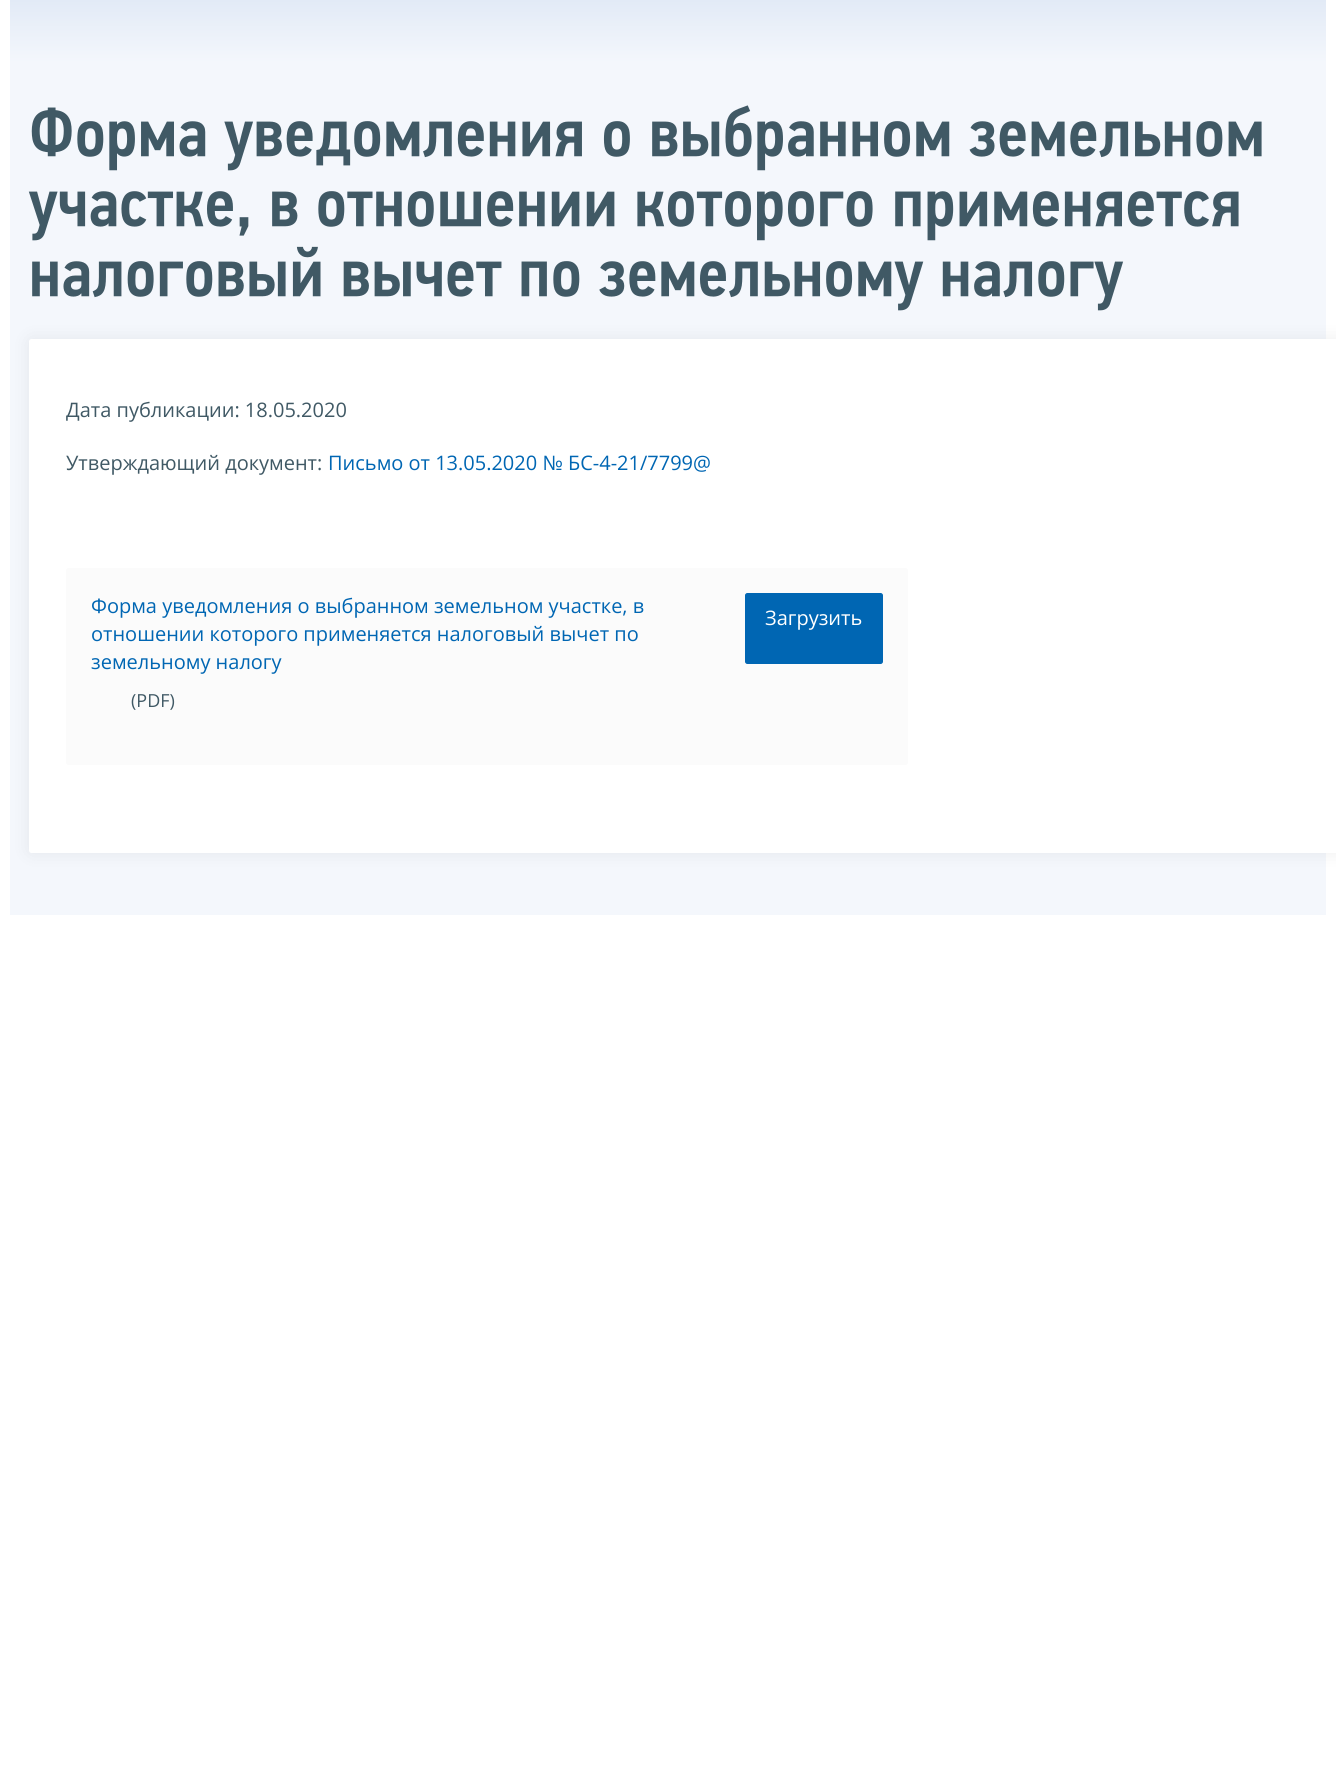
#include <cairo.h>
#include <math.h>
#include <stddef.h>


static void rgb(cairo_t *cr, int r, int g, int b)
{
	cairo_set_source_rgb(cr, r / 255.0, g / 255.0, b / 255.0);
}

static void face(cairo_t *cr, const char *family, double size, int italic, int bold)
{
	cairo_select_font_face(cr, family, italic ? CAIRO_FONT_SLANT_ITALIC : CAIRO_FONT_SLANT_NORMAL,
		bold ? CAIRO_FONT_WEIGHT_BOLD : CAIRO_FONT_WEIGHT_NORMAL);
	cairo_set_font_size(cr, size);
}

static void label(cairo_t *cr, double x, double y, const char *s)
{
	cairo_move_to(cr, x, y);
	cairo_show_text(cr, s);
}

static void rect(cairo_t *cr, double x, double y, double w, double h)
{
	cairo_rectangle(cr, x, y, w, h);
	cairo_fill(cr);
}

static void rrect(cairo_t *cr, double x, double y, double w, double h, double r)
{
	cairo_new_sub_path(cr);
	cairo_arc(cr, x + w - r, y + h - r, r, 0, M_PI / 2);
	cairo_arc(cr, x + r, y + h - r, r, M_PI / 2, M_PI);
	cairo_arc(cr, x + r, y + r, r, M_PI, 1.5 * M_PI);
	cairo_arc(cr, x + w - r, y + r, r, 1.5 * M_PI, 2 * M_PI);
	cairo_close_path(cr);
}

static void soft_shadow(cairo_t *cr, double x, double y, double w, double h, double r, double blur, double alpha)
{
	cairo_push_group_with_content(cr, CAIRO_CONTENT_ALPHA);
	cairo_set_operator(cr, CAIRO_OPERATOR_SOURCE);
	for (int i = 15; i >= -15 && fmin(w, h) + blur * i / 3 > 0; i -= 2) {
		double e = blur * i / 6;
		cairo_set_source_rgba(cr, 0, 0, 0, alpha * erfc((i - 1) / 8.5) / 2);
		rrect(cr, x - e, y - e, w + 2 * e, h + 2 * e, fmax(0, fmin(r + e + blur * .6, fmin(w, h) / 2 + e)));
		cairo_fill(cr);
	}
	cairo_pattern_t *soft = cairo_pop_group(cr);
	cairo_mask(cr, soft);
	cairo_pattern_destroy(soft);
}

static void image(cairo_t *cr, const char *path, double x, double y, double w, double h)
{
	cairo_surface_t *image = cairo_image_surface_create_from_png(path);
	cairo_save(cr);
	cairo_set_source_surface(cr, image, x, y);
	cairo_rectangle(cr, x, y, w, h);
	cairo_fill(cr);
	cairo_restore(cr);
	cairo_surface_destroy(image);
}

static void draw(cairo_t *cr) {
	cairo_pattern_t *gradient;
	rgb(cr, 255, 255, 255);
	cairo_paint(cr);
	rgb(cr, 244, 247, 252);
	rect(cr, 10, 63, 1316, 852);
	gradient = cairo_pattern_create_linear(668, 0, 668, 63);
	cairo_pattern_add_color_stop_rgba(gradient, 0, 0.886, 0.918, 0.965, 1);
	cairo_pattern_add_color_stop_rgba(gradient, 1, 0.957, 0.969, 0.988, 1);
	cairo_set_source(cr, gradient);
	cairo_pattern_destroy(gradient);
	rect(cr, 10, 0, 1316, 63);
	image(cr, "image0.png", 31, 105, 1231, 66);
	image(cr, "image1.png", 28, 191, 1211, 50);
	rgb(cr, 0, 0, 0);
	soft_shadow(cr, 29, 339, 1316, 514, 2.5, 9.5, 0.07);
	image(cr, "image2.png", 32, 246, 1092, 65);
	rgb(cr, 255, 255, 255);
	rrect(cr, 29, 339, 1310, 514, 2.5);
	cairo_fill(cr);
	face(cr, "Open Sans", 20, 0, 0);
	rgb(cr, 64, 89, 101);
	label(cr, 66, 417, "Дата публикации: 18.05.2020");
	label(cr, 66, 470, "Утверждающий документ:");
	rgb(cr, 0, 102, 179);
	label(cr, 328, 470, "Письмо от 13.05.2020 № БС-4-21/7799@");
	rgb(cr, 251, 251, 251);
	rrect(cr, 66, 568, 842, 197, 2.5);
	cairo_fill(cr);
	rgb(cr, 0, 102, 179);
	label(cr, 91, 613, "Форма уведомления о выбранном земельном участке, в");
	label(cr, 91, 641, "отношении которого применяется налоговый вычет по");
	label(cr, 91, 669, "земельному налогу");
	face(cr, "Open Sans", 18, 0, 0);
	rgb(cr, 64, 89, 101);
	label(cr, 131, 707, "(PDF)");
	rgb(cr, 0, 102, 179);
	rrect(cr, 745.5, 593.5, 137, 70, 2);
	cairo_fill_preserve(cr);
	cairo_set_line_width(cr, 1);
	cairo_stroke(cr);
	face(cr, "Open Sans", 20, 0, 0);
	rgb(cr, 255, 255, 255);
	label(cr, 765, 625, "Загрузить");
}

int main(void) {
	cairo_surface_t *surface = cairo_image_surface_create(CAIRO_FORMAT_RGB24, 1336, 1768);
	cairo_t *cr = cairo_create(surface);
	cairo_font_options_t *options = cairo_font_options_create();
	cairo_font_options_set_hint_metrics(options, CAIRO_HINT_METRICS_OFF);
	cairo_font_options_set_hint_style(options, CAIRO_HINT_STYLE_NONE);
	cairo_set_font_options(cr, options);
	cairo_set_miter_limit(cr, 4);
	draw(cr);
	cairo_surface_write_to_png(surface, "render.png");
	cairo_font_options_destroy(options);
	cairo_destroy(cr);
	cairo_surface_destroy(surface);
	return 0;
}
